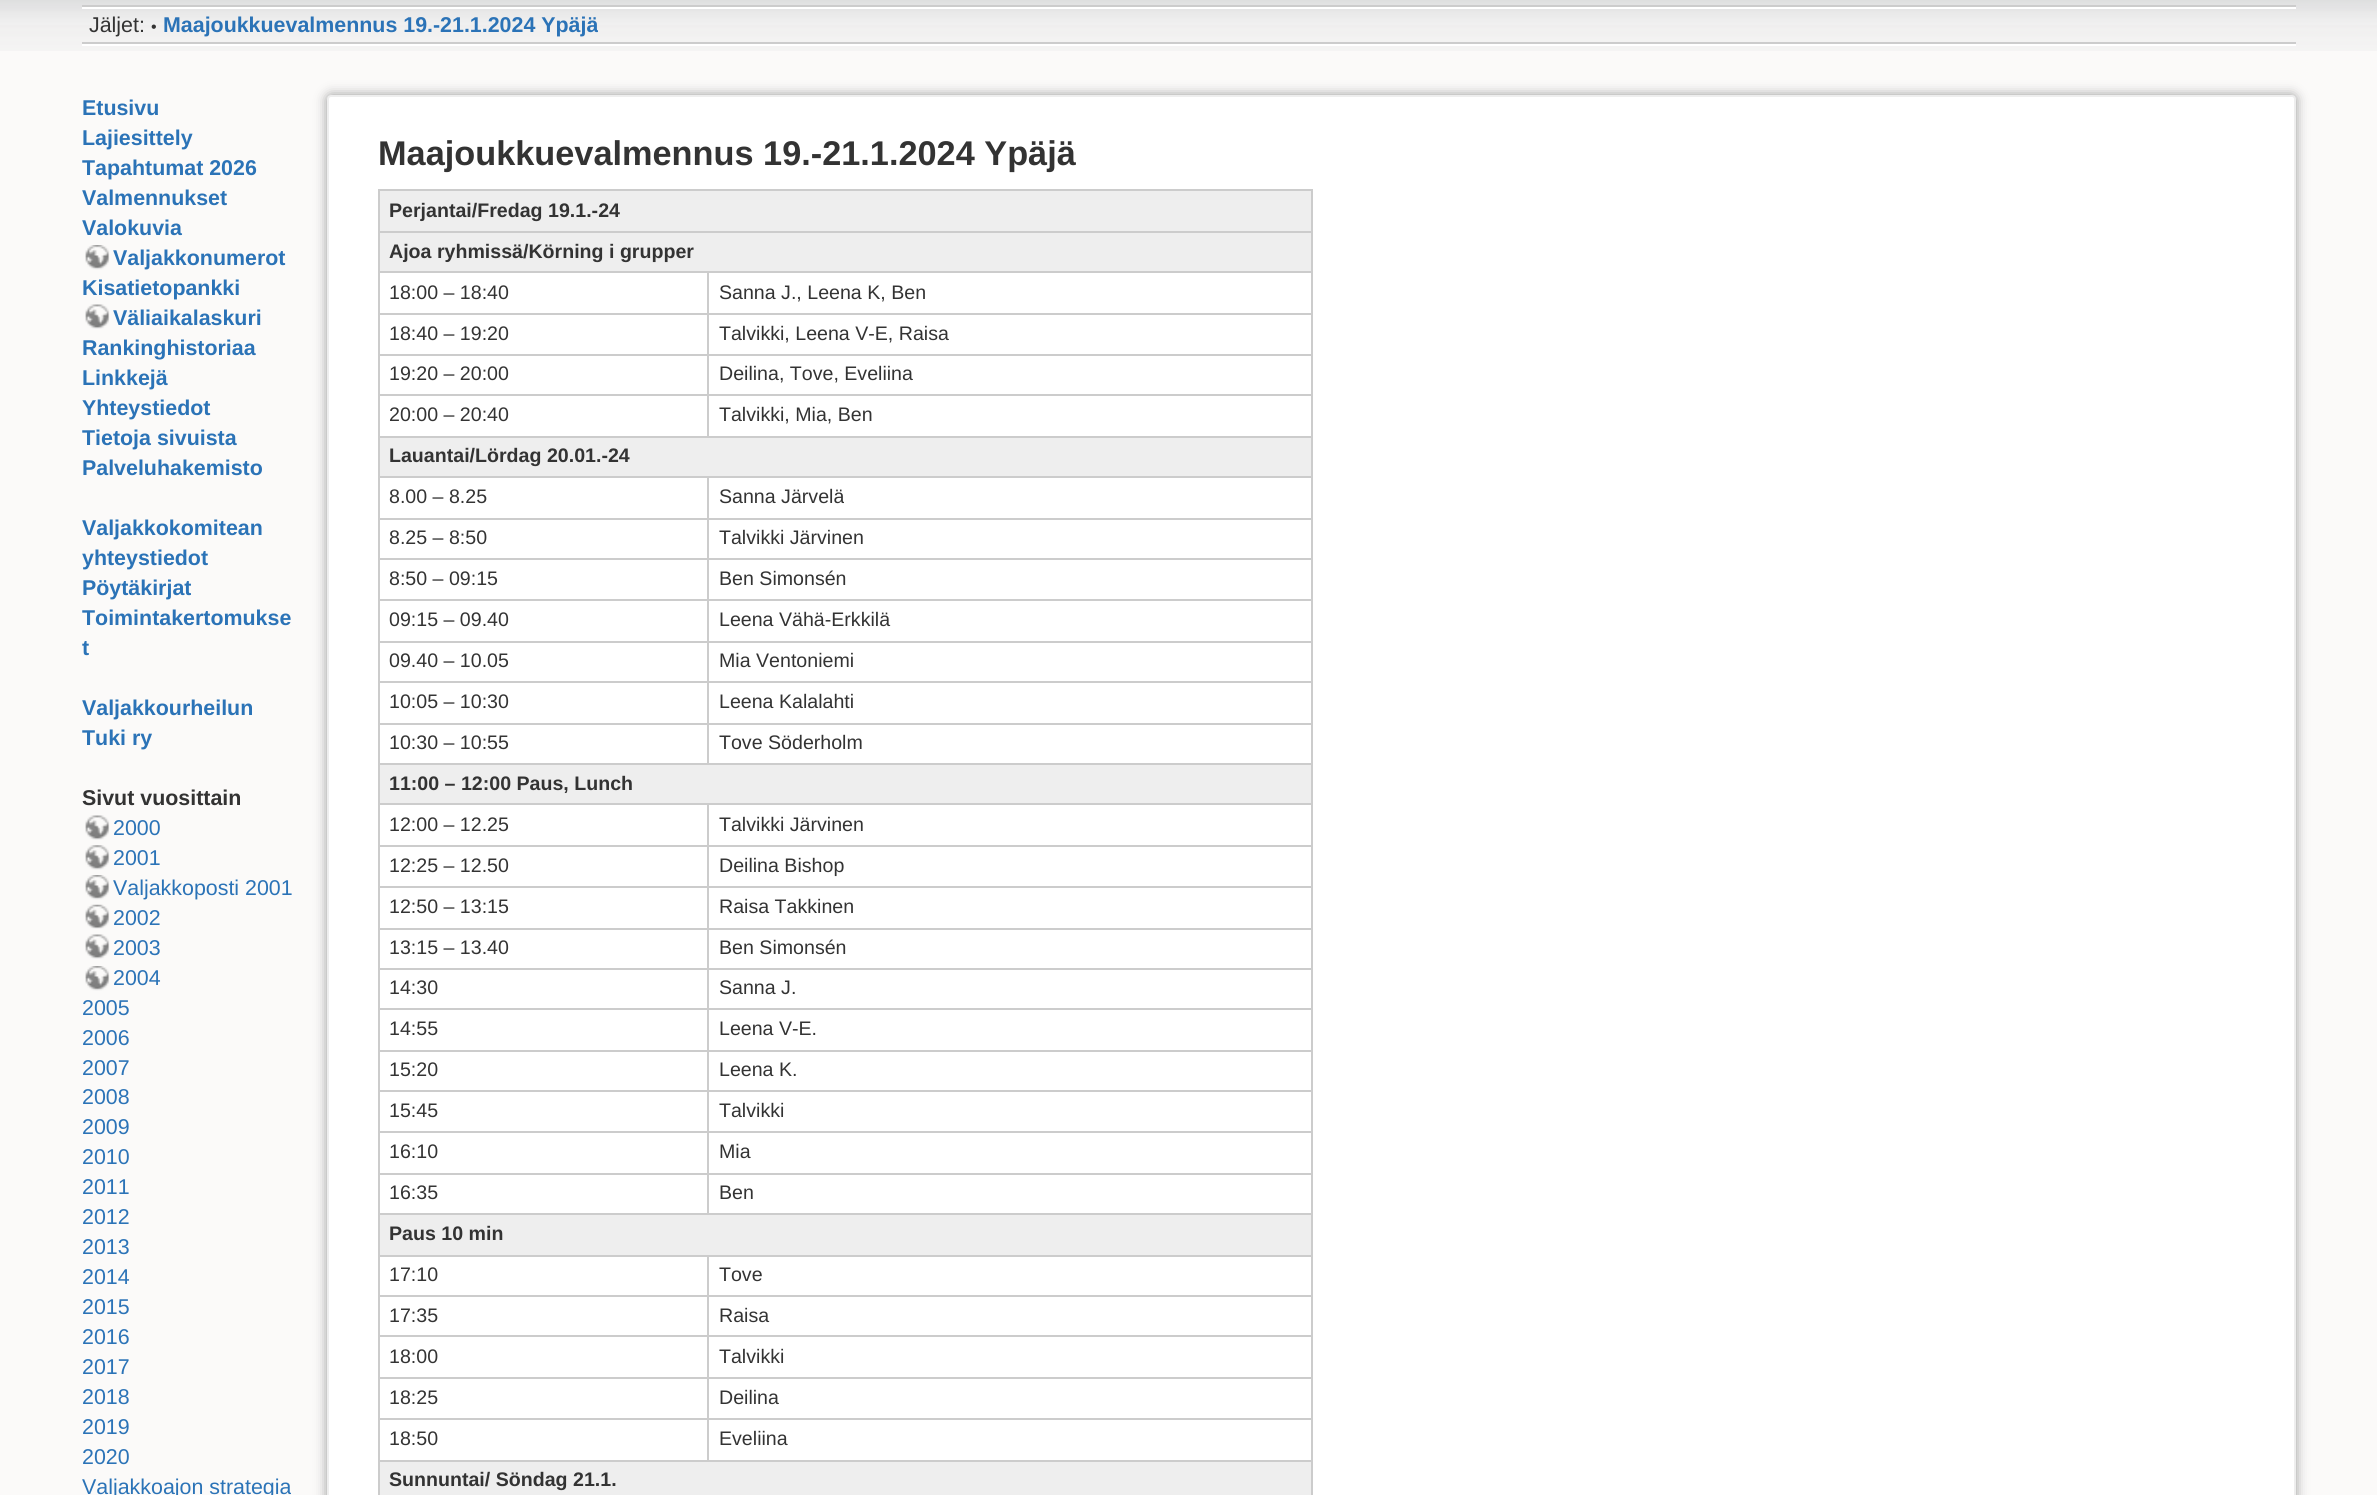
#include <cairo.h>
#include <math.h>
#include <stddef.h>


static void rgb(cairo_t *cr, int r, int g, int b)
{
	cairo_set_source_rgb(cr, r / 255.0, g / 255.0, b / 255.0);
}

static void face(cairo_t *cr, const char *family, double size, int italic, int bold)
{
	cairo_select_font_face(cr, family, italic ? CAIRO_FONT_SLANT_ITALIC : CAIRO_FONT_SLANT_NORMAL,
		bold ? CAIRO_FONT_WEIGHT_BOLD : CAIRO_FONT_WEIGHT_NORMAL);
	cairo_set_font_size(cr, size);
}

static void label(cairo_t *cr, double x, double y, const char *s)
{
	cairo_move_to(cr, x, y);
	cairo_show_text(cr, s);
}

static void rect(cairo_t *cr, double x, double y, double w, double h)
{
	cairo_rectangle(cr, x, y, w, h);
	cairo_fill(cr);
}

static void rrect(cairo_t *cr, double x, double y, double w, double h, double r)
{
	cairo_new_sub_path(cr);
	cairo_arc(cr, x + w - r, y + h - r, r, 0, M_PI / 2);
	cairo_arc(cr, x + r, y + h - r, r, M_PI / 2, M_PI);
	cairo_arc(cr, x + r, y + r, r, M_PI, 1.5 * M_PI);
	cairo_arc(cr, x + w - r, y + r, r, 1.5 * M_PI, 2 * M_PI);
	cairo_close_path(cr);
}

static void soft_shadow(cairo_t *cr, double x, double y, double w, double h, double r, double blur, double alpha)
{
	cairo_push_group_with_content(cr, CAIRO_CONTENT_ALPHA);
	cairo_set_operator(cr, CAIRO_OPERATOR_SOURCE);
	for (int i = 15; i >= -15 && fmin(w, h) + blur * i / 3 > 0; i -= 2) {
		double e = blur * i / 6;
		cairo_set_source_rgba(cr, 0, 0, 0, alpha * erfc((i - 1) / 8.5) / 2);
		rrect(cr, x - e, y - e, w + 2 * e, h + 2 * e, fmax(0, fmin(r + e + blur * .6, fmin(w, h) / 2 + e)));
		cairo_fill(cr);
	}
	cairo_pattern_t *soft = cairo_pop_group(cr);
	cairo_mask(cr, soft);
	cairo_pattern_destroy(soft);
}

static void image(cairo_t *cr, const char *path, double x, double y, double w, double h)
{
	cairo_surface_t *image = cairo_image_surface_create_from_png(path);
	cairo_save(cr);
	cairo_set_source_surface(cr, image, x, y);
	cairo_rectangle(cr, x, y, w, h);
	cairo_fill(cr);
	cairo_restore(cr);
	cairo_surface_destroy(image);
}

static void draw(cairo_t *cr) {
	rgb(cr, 251, 250, 249);
	cairo_paint(cr);
	image(cr, "image0.png", 0, 0, 2377, 51);
	rgb(cr, 204, 204, 204);
	rect(cr, 82, 5, 2214, 2);
	rgb(cr, 255, 255, 255);
	rect(cr, 82, 44, 2214, 2);
	rect(cr, 82, 7, 2214, 2);
	rgb(cr, 204, 204, 204);
	rect(cr, 82, 42, 2214, 2);
	face(cr, "Liberation Sans", 21.4, 0, 0);
	rgb(cr, 51, 51, 51);
	label(cr, 89, 32, "Jäljet:");
	face(cr, "Liberation Sans", 16, 0, 0);
	label(cr, 151, 32, "•");
	face(cr, "Liberation Sans", 21.4, 0, 1);
	rgb(cr, 43, 115, 183);
	label(cr, 163, 32, "Maajoukkuevalmennus 19.-21.1.2024 Ypäjä");
	label(cr, 82, 115, "Etusivu");
	label(cr, 82, 145, "Lajiesittely");
	label(cr, 82, 175, "Tapahtumat 2026");
	label(cr, 82, 205, "Valmennukset");
	label(cr, 82, 235, "Valokuvia");
	image(cr, "image1.png", 85, 245, 25, 25);
	label(cr, 113, 265, "Valjakkonumerot");
	label(cr, 82, 295, "Kisatietopankki");
	image(cr, "image2.png", 85, 304, 25, 25);
	label(cr, 113, 325, "Väliaikalaskuri");
	label(cr, 82, 355, "Rankinghistoriaa");
	label(cr, 82, 385, "Linkkejä");
	label(cr, 82, 415, "Yhteystiedot");
	label(cr, 82, 445, "Tietoja sivuista");
	label(cr, 82, 475, "Palveluhakemisto");
	label(cr, 82, 535, "Valjakkokomitean");
	label(cr, 82, 565, "yhteystiedot");
	label(cr, 82, 595, "Pöytäkirjat");
	label(cr, 82, 625, "Toimintakertomukse");
	label(cr, 82, 655, "t");
	label(cr, 82, 715, "Valjakkourheilun");
	label(cr, 82, 745, "Tuki ry");
	rgb(cr, 51, 51, 51);
	label(cr, 82, 805, "Sivut vuosittain");
	image(cr, "image2.png", 85, 815, 25, 25);
	face(cr, "Liberation Sans", 21.4, 0, 0);
	rgb(cr, 43, 115, 183);
	label(cr, 113, 835, "2000");
	image(cr, "image3.png", 85, 845, 25, 25);
	label(cr, 113, 865, "2001");
	image(cr, "image1.png", 85, 875, 25, 25);
	label(cr, 113, 895, "Valjakkoposti 2001");
	image(cr, "image4.png", 85, 904, 25, 25);
	label(cr, 113, 925, "2002");
	image(cr, "image2.png", 85, 934, 25, 25);
	label(cr, 113, 955, "2003");
	image(cr, "image1.png", 85, 966, 25, 25);
	label(cr, 113, 985, "2004");
	label(cr, 82, 1015, "2005");
	label(cr, 82, 1045, "2006");
	label(cr, 82, 1075, "2007");
	label(cr, 82, 1104, "2008");
	label(cr, 82, 1134, "2009");
	label(cr, 82, 1164, "2010");
	label(cr, 82, 1194, "2011");
	label(cr, 82, 1224, "2012");
	label(cr, 82, 1254, "2013");
	label(cr, 82, 1284, "2014");
	label(cr, 82, 1314, "2015");
	label(cr, 82, 1344, "2016");
	label(cr, 82, 1374, "2017");
	label(cr, 82, 1404, "2018");
	label(cr, 82, 1434, "2019");
	label(cr, 82, 1464, "2020");
	label(cr, 82, 1494, "Valjakkoajon strategia");
	rgb(cr, 153, 153, 153);
	soft_shadow(cr, 327, 95, 1969, 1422, 4, 6, 1);
	rgb(cr, 255, 255, 255);
	rrect(cr, 328, 96, 1967, 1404, 3);
	cairo_fill_preserve(cr);
	rgb(cr, 238, 238, 238);
	cairo_stroke(cr);
	face(cr, "Liberation Sans", 34.3, 0, 1);
	rgb(cr, 51, 51, 51);
	label(cr, 378, 165, "Maajoukkuevalmennus 19.-21.1.2024 Ypäjä");
	rgb(cr, 204, 204, 204);
	rect(cr, 378, 189, 935, 2);
	rect(cr, 1311, 189, 2, 1306);
	rect(cr, 378, 189, 2, 1306);
	rgb(cr, 238, 238, 238);
	rect(cr, 380, 191, 931, 40);
	face(cr, "Liberation Sans", 19.6, 0, 1);
	rgb(cr, 51, 51, 51);
	label(cr, 389, 217, "Perjantai/Fredag 19.1.-24");
	rgb(cr, 238, 238, 238);
	rect(cr, 380, 233, 931, 38);
	rgb(cr, 204, 204, 204);
	rect(cr, 378, 231, 935, 2);
	rgb(cr, 51, 51, 51);
	label(cr, 389, 258, "Ajoa ryhmissä/Körning i grupper");
	rgb(cr, 204, 204, 204);
	rect(cr, 707, 271, 606, 2);
	rect(cr, 707, 313, 606, 2);
	rect(cr, 707, 354, 606, 2);
	rect(cr, 707, 394, 606, 2);
	rect(cr, 378, 436, 935, 2);
	rect(cr, 707, 394, 2, 44);
	rect(cr, 378, 394, 331, 2);
	rect(cr, 707, 354, 2, 42);
	rect(cr, 378, 354, 331, 2);
	rect(cr, 707, 313, 2, 42);
	rect(cr, 378, 313, 331, 2);
	rect(cr, 707, 271, 2, 44);
	rect(cr, 378, 271, 331, 2);
	face(cr, "Liberation Sans", 19.6, 0, 0);
	rgb(cr, 51, 51, 51);
	label(cr, 389, 299, "18:00 – 18:40");
	label(cr, 719, 299, "Sanna J., Leena K, Ben");
	label(cr, 389, 340, "18:40 – 19:20");
	label(cr, 719, 340, "Talvikki, Leena V-E, Raisa");
	label(cr, 389, 380, "19:20 – 20:00");
	label(cr, 719, 380, "Deilina, Tove, Eveliina");
	label(cr, 389, 421, "20:00 – 20:40");
	label(cr, 719, 421, "Talvikki, Mia, Ben");
	rgb(cr, 238, 238, 238);
	rect(cr, 380, 438, 931, 38);
	face(cr, "Liberation Sans", 19.6, 0, 1);
	rgb(cr, 51, 51, 51);
	label(cr, 389, 462, "Lauantai/Lördag 20.01.-24");
	rgb(cr, 204, 204, 204);
	rect(cr, 707, 476, 606, 2);
	rect(cr, 707, 518, 606, 2);
	rect(cr, 707, 558, 606, 2);
	rect(cr, 707, 599, 606, 2);
	rect(cr, 707, 641, 606, 2);
	rect(cr, 707, 681, 606, 2);
	rect(cr, 707, 723, 606, 2);
	rect(cr, 378, 763, 935, 2);
	rect(cr, 707, 723, 2, 42);
	rect(cr, 378, 723, 331, 2);
	rect(cr, 707, 681, 2, 44);
	rect(cr, 378, 681, 331, 2);
	rect(cr, 707, 641, 2, 42);
	rect(cr, 378, 641, 331, 2);
	rect(cr, 707, 599, 2, 43);
	rect(cr, 378, 599, 331, 2);
	rect(cr, 707, 558, 2, 42);
	rect(cr, 378, 558, 331, 2);
	rect(cr, 707, 518, 2, 42);
	rect(cr, 378, 518, 331, 2);
	rect(cr, 707, 476, 2, 44);
	rect(cr, 378, 476, 331, 2);
	face(cr, "Liberation Sans", 19.6, 0, 0);
	rgb(cr, 51, 51, 51);
	label(cr, 389, 503, "8.00 – 8.25");
	label(cr, 719, 503, "Sanna Järvelä");
	label(cr, 389, 544, "8.25 – 8:50");
	label(cr, 719, 544, "Talvikki Järvinen");
	label(cr, 389, 585, "8:50 – 09:15");
	label(cr, 719, 585, "Ben Simonsén");
	label(cr, 389, 626, "09:15 – 09.40");
	label(cr, 719, 626, "Leena Vähä-Erkkilä");
	label(cr, 389, 667, "09.40 – 10.05");
	label(cr, 719, 667, "Mia Ventoniemi");
	label(cr, 389, 708, "10:05 – 10:30");
	label(cr, 719, 708, "Leena Kalalahti");
	label(cr, 389, 749, "10:30 – 10:55");
	label(cr, 719, 749, "Tove Söderholm");
	rgb(cr, 238, 238, 238);
	rect(cr, 380, 765, 931, 38);
	face(cr, "Liberation Sans", 19.6, 0, 1);
	rgb(cr, 51, 51, 51);
	label(cr, 389, 790, "11:00 – 12:00 Paus, Lunch");
	rgb(cr, 204, 204, 204);
	rect(cr, 707, 803, 606, 2);
	rect(cr, 707, 845, 606, 2);
	rect(cr, 707, 886, 606, 2);
	rect(cr, 707, 928, 606, 2);
	rect(cr, 707, 968, 606, 2);
	rect(cr, 707, 1008, 606, 2);
	rect(cr, 707, 1050, 606, 2);
	rect(cr, 707, 1090, 606, 2);
	rect(cr, 707, 1131, 606, 2);
	rect(cr, 707, 1173, 606, 2);
	rect(cr, 378, 1213, 935, 2);
	rect(cr, 707, 1173, 2, 42);
	rect(cr, 378, 1173, 331, 2);
	rect(cr, 707, 1131, 2, 43);
	rect(cr, 378, 1131, 331, 2);
	rect(cr, 707, 1090, 2, 42);
	rect(cr, 378, 1090, 331, 2);
	rect(cr, 707, 1050, 2, 42);
	rect(cr, 378, 1050, 331, 2);
	rect(cr, 707, 1008, 2, 44);
	rect(cr, 378, 1008, 331, 2);
	rect(cr, 707, 968, 2, 42);
	rect(cr, 378, 968, 331, 2);
	rect(cr, 707, 928, 2, 42);
	rect(cr, 378, 928, 331, 2);
	rect(cr, 707, 886, 2, 43);
	rect(cr, 378, 886, 331, 2);
	rect(cr, 707, 845, 2, 42);
	rect(cr, 378, 845, 331, 2);
	rect(cr, 707, 803, 2, 44);
	rect(cr, 378, 803, 331, 2);
	face(cr, "Liberation Sans", 19.6, 0, 0);
	rgb(cr, 51, 51, 51);
	label(cr, 389, 831, "12:00 – 12.25");
	label(cr, 719, 831, "Talvikki Järvinen");
	label(cr, 389, 872, "12:25 – 12.50");
	label(cr, 719, 872, "Deilina Bishop");
	label(cr, 389, 913, "12:50 – 13:15");
	label(cr, 719, 913, "Raisa Takkinen");
	label(cr, 389, 954, "13:15 – 13.40");
	label(cr, 719, 954, "Ben Simonsén");
	label(cr, 389, 994, "14:30");
	label(cr, 719, 994, "Sanna J.");
	label(cr, 389, 1035, "14:55");
	label(cr, 719, 1035, "Leena V-E.");
	label(cr, 389, 1076, "15:20");
	label(cr, 719, 1076, "Leena K.");
	label(cr, 389, 1117, "15:45");
	label(cr, 719, 1117, "Talvikki");
	label(cr, 389, 1158, "16:10");
	label(cr, 719, 1158, "Mia");
	label(cr, 389, 1199, "16:35");
	label(cr, 719, 1199, "Ben");
	rgb(cr, 238, 238, 238);
	rect(cr, 380, 1215, 931, 40);
	face(cr, "Liberation Sans", 19.6, 0, 1);
	rgb(cr, 51, 51, 51);
	label(cr, 389, 1240, "Paus 10 min");
	rgb(cr, 204, 204, 204);
	rect(cr, 707, 1255, 606, 2);
	rect(cr, 707, 1295, 606, 2);
	rect(cr, 707, 1335, 606, 2);
	rect(cr, 707, 1377, 606, 2);
	rect(cr, 707, 1418, 606, 2);
	rect(cr, 378, 1460, 935, 2);
	rect(cr, 707, 1418, 2, 43);
	rect(cr, 378, 1418, 331, 2);
	rect(cr, 707, 1377, 2, 42);
	rect(cr, 378, 1377, 331, 2);
	rect(cr, 707, 1335, 2, 44);
	rect(cr, 378, 1335, 331, 2);
	rect(cr, 707, 1295, 2, 42);
	rect(cr, 378, 1295, 331, 2);
	rect(cr, 707, 1255, 2, 42);
	rect(cr, 378, 1255, 331, 2);
	face(cr, "Liberation Sans", 19.6, 0, 0);
	rgb(cr, 51, 51, 51);
	label(cr, 389, 1281, "17:10");
	label(cr, 719, 1281, "Tove");
	label(cr, 389, 1322, "17:35");
	label(cr, 719, 1322, "Raisa");
	label(cr, 389, 1363, "18:00");
	label(cr, 719, 1363, "Talvikki");
	label(cr, 389, 1404, "18:25");
	label(cr, 719, 1404, "Deilina");
	label(cr, 389, 1445, "18:50");
	label(cr, 719, 1445, "Eveliina");
	rgb(cr, 238, 238, 238);
	rect(cr, 380, 1462, 931, 33);
	face(cr, "Liberation Sans", 19.6, 0, 1);
	rgb(cr, 51, 51, 51);
	label(cr, 389, 1486, "Sunnuntai/ Söndag 21.1.");
}

int main(void) {
	cairo_surface_t *surface = cairo_image_surface_create(CAIRO_FORMAT_RGB24, 2377, 1495);
	cairo_t *cr = cairo_create(surface);
	cairo_font_options_t *options = cairo_font_options_create();
	cairo_font_options_set_hint_metrics(options, CAIRO_HINT_METRICS_OFF);
	cairo_font_options_set_hint_style(options, CAIRO_HINT_STYLE_NONE);
	cairo_set_font_options(cr, options);
	cairo_set_miter_limit(cr, 4);
	draw(cr);
	cairo_surface_write_to_png(surface, "render.png");
	cairo_font_options_destroy(options);
	cairo_destroy(cr);
	cairo_surface_destroy(surface);
	return 0;
}
